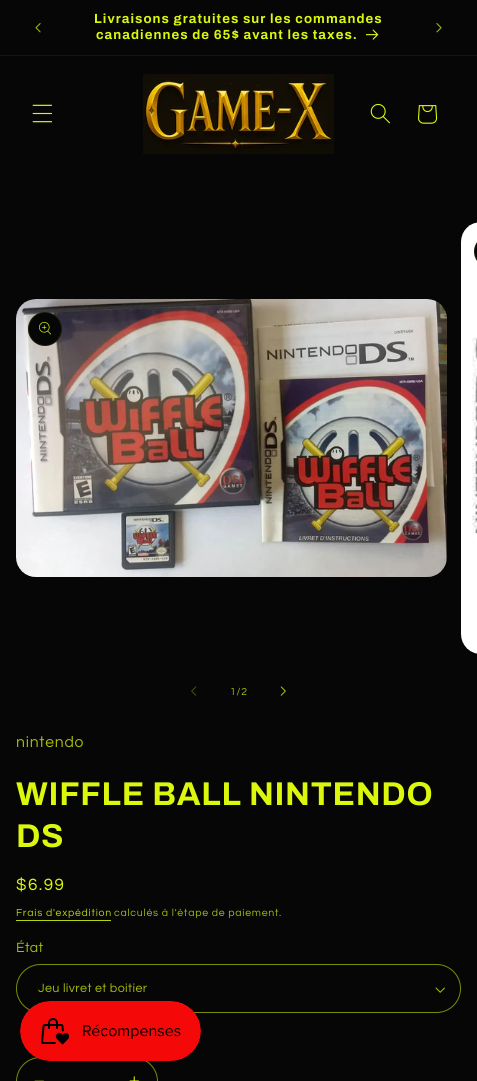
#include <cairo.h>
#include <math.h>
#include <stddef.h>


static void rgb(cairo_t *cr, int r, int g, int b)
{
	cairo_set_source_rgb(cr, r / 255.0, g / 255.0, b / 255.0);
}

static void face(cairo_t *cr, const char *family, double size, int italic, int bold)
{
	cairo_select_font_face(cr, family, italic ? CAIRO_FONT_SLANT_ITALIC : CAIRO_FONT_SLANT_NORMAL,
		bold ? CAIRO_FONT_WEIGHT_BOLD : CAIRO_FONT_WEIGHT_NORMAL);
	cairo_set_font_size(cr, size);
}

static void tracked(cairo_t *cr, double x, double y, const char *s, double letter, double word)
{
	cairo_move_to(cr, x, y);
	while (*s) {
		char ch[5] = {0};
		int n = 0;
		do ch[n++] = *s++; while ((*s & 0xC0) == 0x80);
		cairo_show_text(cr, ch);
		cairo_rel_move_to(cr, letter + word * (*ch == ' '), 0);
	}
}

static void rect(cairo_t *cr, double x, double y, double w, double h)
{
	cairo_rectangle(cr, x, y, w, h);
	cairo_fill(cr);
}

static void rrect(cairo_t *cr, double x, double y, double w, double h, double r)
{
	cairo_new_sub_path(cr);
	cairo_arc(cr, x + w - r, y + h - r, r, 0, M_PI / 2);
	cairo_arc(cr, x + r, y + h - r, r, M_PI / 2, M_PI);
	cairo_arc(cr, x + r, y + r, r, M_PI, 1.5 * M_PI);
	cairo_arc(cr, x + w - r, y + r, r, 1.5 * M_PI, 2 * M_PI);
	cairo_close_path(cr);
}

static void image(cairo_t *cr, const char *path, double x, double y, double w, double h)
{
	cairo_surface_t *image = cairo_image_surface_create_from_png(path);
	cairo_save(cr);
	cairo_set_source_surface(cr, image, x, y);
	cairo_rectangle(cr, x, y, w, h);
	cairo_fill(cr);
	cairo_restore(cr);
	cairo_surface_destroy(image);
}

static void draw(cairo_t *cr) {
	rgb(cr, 6, 6, 6);
	cairo_paint(cr);
	rgb(cr, 23, 25, 6);
	rect(cr, 0, 55, 477, 1);
	image(cr, "image0.png", 35, 23, 6, 10);
	face(cr, "Archivo", 13.2, 0, 1);
	rgb(cr, 219, 247, 12);
	tracked(cr, 94, 23, "Livraisons gratuites sur les commandes", 1.05, 0);
	tracked(cr, 96, 39, "canadiennes de 65$ avant les taxes.", 1.05, 0);
	image(cr, "image1.png", 366, 29, 13, 11);
	image(cr, "image2.png", 436, 23, 6, 10);
	image(cr, "image3.png", 32, 104, 20, 19);
	image(cr, "image4.png", 143, 74, 191, 80);
	image(cr, "image5.png", 370, 103, 20, 21);
	image(cr, "image6.png", 418, 105, 20, 19);
	image(cr, "image7.png", 16, 299, 431, 278);
	rgb(cr, 6, 6, 6);
	cairo_arc(cr, 45, 329, 17, 0, 2 * M_PI);
	cairo_fill(cr);
	cairo_arc(cr, 45, 329, 16.5, 0, 2 * M_PI);
	cairo_set_source_rgba(cr, 0.859, 0.969, 0.047, 0.1);
	cairo_set_line_width(cr, 1);
	cairo_stroke(cr);
	image(cr, "image8.png", 39, 322, 12, 13);
	image(cr, "image9.png", 461, 222, 16, 432);
	rgb(cr, 6, 6, 6);
	cairo_new_path(cr);
	cairo_move_to(cr, 490.5, 235);
	cairo_line_to(cr, 477, 235);
	cairo_line_to(cr, 477, 268);
	cairo_line_to(cr, 490.5, 268);
	cairo_curve_to(cr, 481.5, 268, 474, 260.5, 474, 251.5);
	cairo_curve_to(cr, 474, 242.5, 481.5, 235, 490.5, 235);
	cairo_close_path(cr);
	cairo_fill(cr);
	rrect(cr, 474.5, 235.5, 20, 32, 16);
	cairo_set_source_rgba(cr, 0.859, 0.969, 0.047, 0.1);
	cairo_stroke(cr);
	image(cr, "image10.png", 191, 686, 6, 10);
	face(cr, "Questrial", 10.5, 0, 0);
	rgb(cr, 166, 187, 11);
	tracked(cr, 230, 695, "1/2", 0.75, 0);
	image(cr, "image11.png", 280, 686, 6, 10);
	face(cr, "Questrial", 15.75, 0, 0);
	tracked(cr, 16, 747, "nintendo", 0.75, 0);
	face(cr, "Archivo", 33, 0, 1);
	rgb(cr, 219, 247, 12);
	tracked(cr, 16, 805, "WIFFLE BALL NINTENDO", 0.7, 0);
	tracked(cr, 16, 847, "DS", 0.7, 0);
	face(cr, "Questrial", 17, 0, 0);
	tracked(cr, 16, 890, "$6.99", 1.5, 0);
	face(cr, "Questrial", 10.5, 0, 0);
	rgb(cr, 187, 211, 11);
	tracked(cr, 16, 916, "Frais d'expédition", 0.75, 0);
	rect(cr, 16, 920, 95, 1);
	rgb(cr, 166, 187, 11);
	tracked(cr, 114, 916, "calculés à l'étape de paiement.", 0.75, 0);
	face(cr, "Questrial", 14, 0, 0);
	tracked(cr, 16, 952, "État", 0.4, 0);
	image(cr, "image12.png", 435, 987, 10, 6);
	rrect(cr, 16.5, 964.5, 444, 48, 24);
	rgb(cr, 123, 139, 9);
	cairo_stroke(cr);
	face(cr, "Questrial", 12.5, 0, 0);
	rgb(cr, 166, 187, 11);
	tracked(cr, 38, 992, "Jeu livret et boitier", 0.4, 0);
	image(cr, "image13.png", 34, 1080, 10, 1);
	image(cr, "image14.png", 129, 1076, 10, 5);
	rrect(cr, 16.5, 1057.5, 141, 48, 24);
	rgb(cr, 123, 139, 9);
	cairo_stroke(cr);
	image(cr, "image15.png", 20, 1001, 181, 60);
}

int main(void) {
	cairo_surface_t *surface = cairo_image_surface_create(CAIRO_FORMAT_RGB24, 477, 1081);
	cairo_t *cr = cairo_create(surface);
	cairo_font_options_t *options = cairo_font_options_create();
	cairo_font_options_set_hint_metrics(options, CAIRO_HINT_METRICS_OFF);
	cairo_font_options_set_hint_style(options, CAIRO_HINT_STYLE_NONE);
	cairo_set_font_options(cr, options);
	cairo_set_miter_limit(cr, 4);
	draw(cr);
	cairo_surface_write_to_png(surface, "render.png");
	cairo_font_options_destroy(options);
	cairo_destroy(cr);
	cairo_surface_destroy(surface);
	return 0;
}
